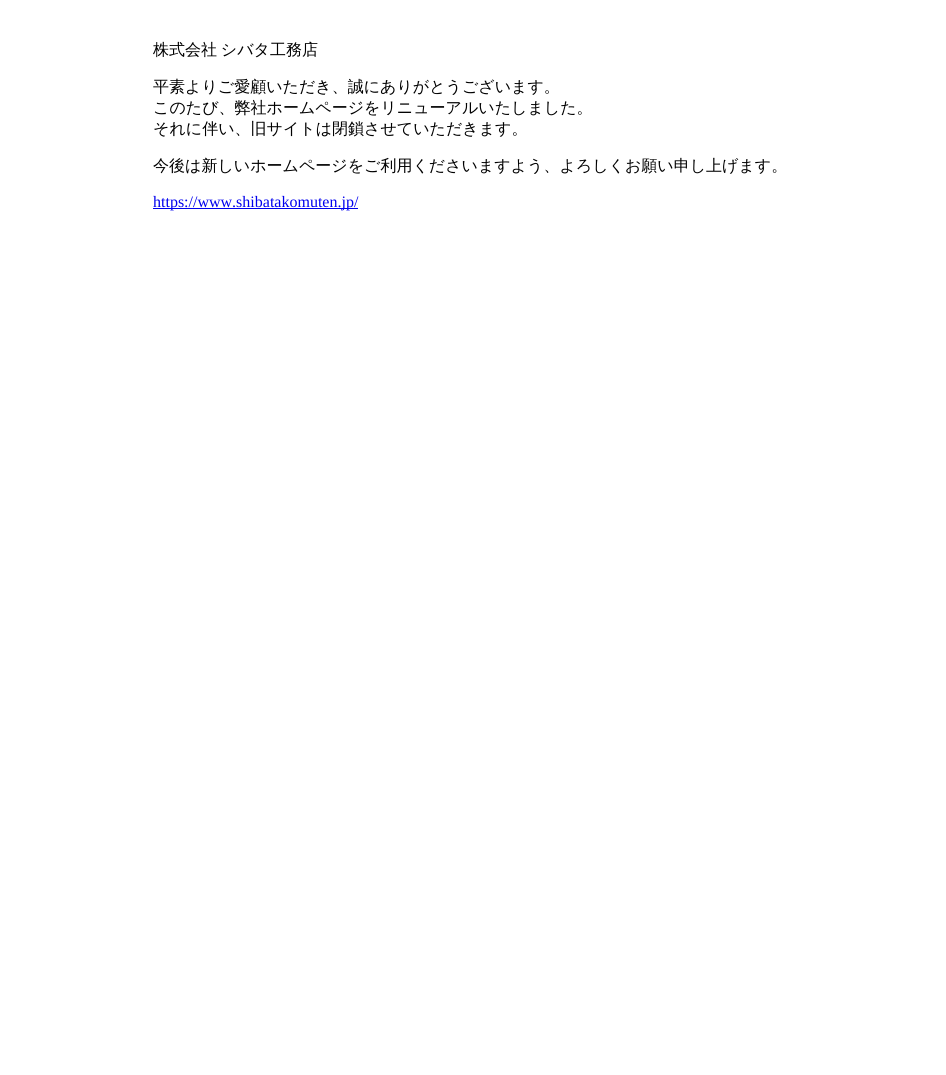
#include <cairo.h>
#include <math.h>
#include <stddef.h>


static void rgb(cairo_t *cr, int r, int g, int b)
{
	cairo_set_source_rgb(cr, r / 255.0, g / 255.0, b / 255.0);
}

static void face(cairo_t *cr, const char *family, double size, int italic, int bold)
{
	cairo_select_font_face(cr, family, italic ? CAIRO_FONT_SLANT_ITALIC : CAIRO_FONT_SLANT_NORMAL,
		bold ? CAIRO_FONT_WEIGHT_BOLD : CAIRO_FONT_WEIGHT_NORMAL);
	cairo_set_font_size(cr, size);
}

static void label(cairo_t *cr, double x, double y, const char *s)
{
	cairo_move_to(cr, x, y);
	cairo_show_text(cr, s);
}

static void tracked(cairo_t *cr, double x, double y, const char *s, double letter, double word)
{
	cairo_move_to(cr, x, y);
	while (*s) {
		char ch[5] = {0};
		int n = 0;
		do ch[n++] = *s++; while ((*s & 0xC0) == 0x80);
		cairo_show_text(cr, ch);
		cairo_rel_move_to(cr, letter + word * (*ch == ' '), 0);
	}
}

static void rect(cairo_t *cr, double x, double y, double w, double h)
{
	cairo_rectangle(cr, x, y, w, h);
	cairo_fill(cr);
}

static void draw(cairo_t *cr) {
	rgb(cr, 255, 255, 255);
	cairo_paint(cr);
	face(cr, "WenQuanYi Zen Hei Medium", 16, 0, 0);
	rgb(cr, 0, 0, 0);
	tracked(cr, 153, 55, "株式会社 シバタ工務店", 0, -1);
	label(cr, 153, 92, "平素よりご愛顧いただき、誠にありがとうございます。");
	label(cr, 153, 113, "このたび、弊社ホームページをリニューアルいたしました。");
	label(cr, 153, 134, "それに伴い、旧サイトは閉鎖させていただきます。");
	label(cr, 153, 171, "今後は新しいホームページをご利用くださいますよう、よろしくお願い申し上げます。");
	rgb(cr, 0, 0, 238);
	rect(cr, 153, 208, 205, 1);
	face(cr, "Liberation Serif", 16, 0, 0);
	label(cr, 153, 207, "https://www.shibatakomuten.jp/");
}

int main(void) {
	cairo_surface_t *surface = cairo_image_surface_create(CAIRO_FORMAT_RGB24, 946, 1075);
	cairo_t *cr = cairo_create(surface);
	cairo_font_options_t *options = cairo_font_options_create();
	cairo_font_options_set_hint_metrics(options, CAIRO_HINT_METRICS_OFF);
	cairo_font_options_set_hint_style(options, CAIRO_HINT_STYLE_NONE);
	cairo_set_font_options(cr, options);
	cairo_set_miter_limit(cr, 4);
	draw(cr);
	cairo_surface_write_to_png(surface, "render.png");
	cairo_font_options_destroy(options);
	cairo_destroy(cr);
	cairo_surface_destroy(surface);
	return 0;
}
